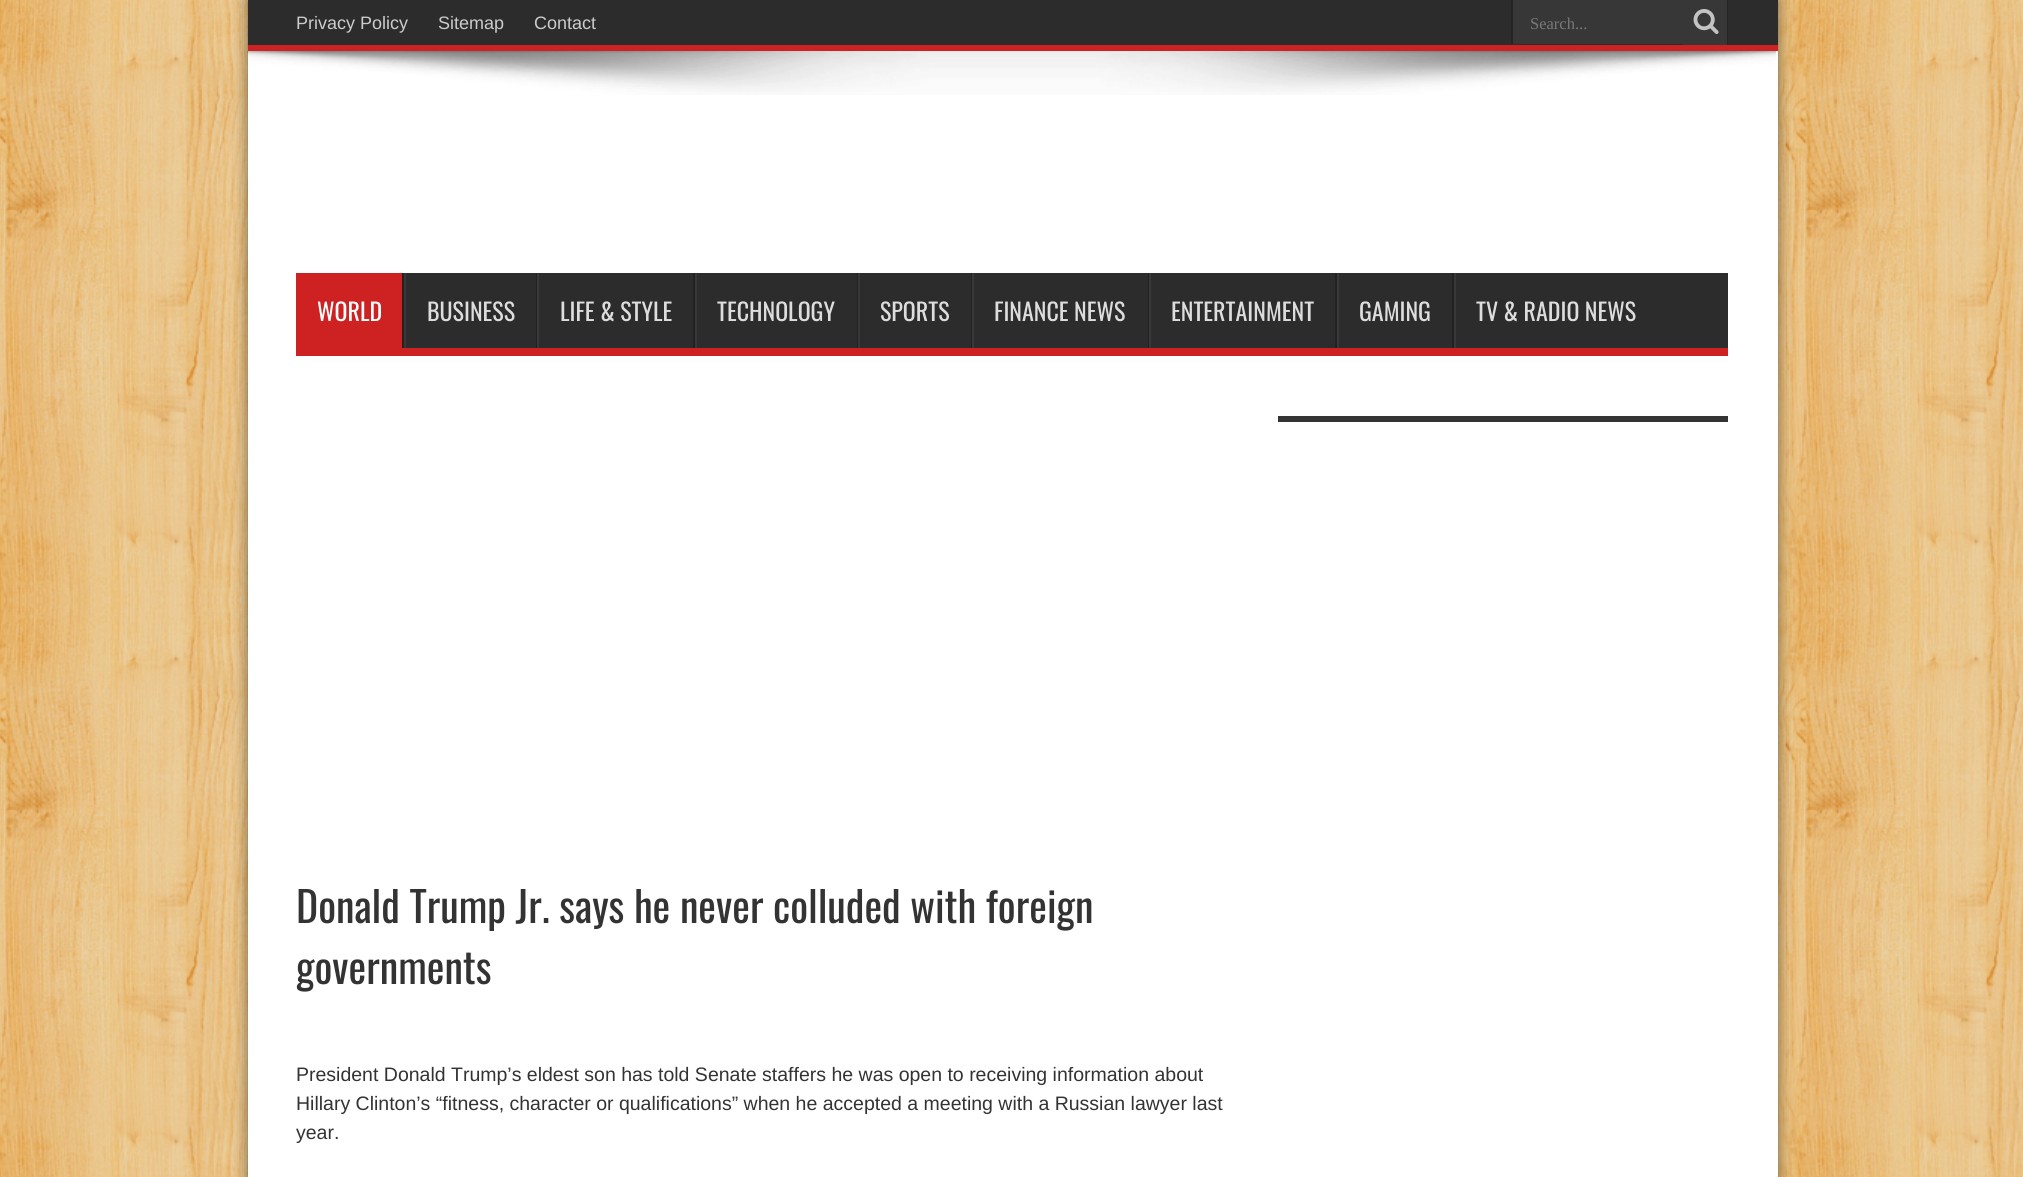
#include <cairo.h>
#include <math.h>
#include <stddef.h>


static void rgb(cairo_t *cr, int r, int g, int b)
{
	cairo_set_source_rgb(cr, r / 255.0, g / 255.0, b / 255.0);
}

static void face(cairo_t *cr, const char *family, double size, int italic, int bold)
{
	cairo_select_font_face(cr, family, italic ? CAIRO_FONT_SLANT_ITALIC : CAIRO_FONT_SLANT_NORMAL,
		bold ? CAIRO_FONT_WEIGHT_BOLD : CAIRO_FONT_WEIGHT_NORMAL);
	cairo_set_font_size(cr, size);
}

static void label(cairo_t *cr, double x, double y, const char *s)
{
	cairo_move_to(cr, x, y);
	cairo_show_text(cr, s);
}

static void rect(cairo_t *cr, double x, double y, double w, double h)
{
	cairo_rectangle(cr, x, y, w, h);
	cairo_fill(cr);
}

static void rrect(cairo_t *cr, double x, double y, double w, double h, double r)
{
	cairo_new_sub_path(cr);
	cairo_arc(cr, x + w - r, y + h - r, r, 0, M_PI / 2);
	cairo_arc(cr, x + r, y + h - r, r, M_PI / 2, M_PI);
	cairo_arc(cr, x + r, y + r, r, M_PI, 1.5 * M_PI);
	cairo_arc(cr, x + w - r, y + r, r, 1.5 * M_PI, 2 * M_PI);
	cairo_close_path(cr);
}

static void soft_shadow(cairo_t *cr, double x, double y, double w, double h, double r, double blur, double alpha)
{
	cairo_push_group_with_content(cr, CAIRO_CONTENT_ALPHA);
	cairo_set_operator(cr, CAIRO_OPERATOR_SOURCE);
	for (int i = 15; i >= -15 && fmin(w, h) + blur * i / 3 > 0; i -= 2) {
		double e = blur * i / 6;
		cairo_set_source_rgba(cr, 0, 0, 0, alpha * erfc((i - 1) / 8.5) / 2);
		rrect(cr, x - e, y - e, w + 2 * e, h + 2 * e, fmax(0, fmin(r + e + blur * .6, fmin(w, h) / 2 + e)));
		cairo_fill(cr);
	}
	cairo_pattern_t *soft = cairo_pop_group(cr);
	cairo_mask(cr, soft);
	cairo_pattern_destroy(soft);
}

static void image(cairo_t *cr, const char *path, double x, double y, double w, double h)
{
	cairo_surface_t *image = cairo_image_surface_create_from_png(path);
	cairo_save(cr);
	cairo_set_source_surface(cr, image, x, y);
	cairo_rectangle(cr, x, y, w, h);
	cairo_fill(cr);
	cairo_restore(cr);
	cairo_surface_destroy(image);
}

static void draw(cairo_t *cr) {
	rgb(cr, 255, 255, 255);
	cairo_paint(cr);
	image(cr, "image0.png", 0, 0, 2023, 1177);
	rgb(cr, 0, 0, 0);
	soft_shadow(cr, 248, 0, 1530, 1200, 0, 7.5, 0.5);
	rgb(cr, 255, 255, 255);
	rect(cr, 248, 51, 1530, 1126);
	rgb(cr, 44, 44, 44);
	rect(cr, 248, 0, 1530, 45);
	rgb(cr, 205, 33, 34);
	rect(cr, 248, 45, 1530, 6);
	face(cr, "Liberation Sans", 18, 0, 0);
	rgb(cr, 204, 204, 204);
	label(cr, 296, 29, "Privacy Policy");
	label(cr, 438, 29, "Sitemap");
	label(cr, 534, 29, "Contact");
	rgb(cr, 55, 55, 55);
	rect(cr, 1513, 0, 170, 44);
	rgb(cr, 37, 37, 37);
	rect(cr, 1511, 0, 2, 44);
	face(cr, "Liberation Serif", 16.5, 0, 0);
	rgb(cr, 120, 120, 120);
	label(cr, 1530, 29, "Search...");
	rgb(cr, 55, 55, 55);
	rect(cr, 1683, 0, 44, 45);
	rgb(cr, 37, 37, 37);
	rect(cr, 1727, 0, 1, 45);
	image(cr, "image1.png", 1693, 9, 26, 25);
	image(cr, "image2.png", 247, 51, 1529, 44);
	rgb(cr, 44, 44, 44);
	rect(cr, 406, 273, 1322, 75);
	rgb(cr, 205, 33, 34);
	rect(cr, 296, 348, 1432, 8);
	rect(cr, 296, 273, 106, 75);
	face(cr, "Oswald", 24, 0, 0);
	rgb(cr, 255, 255, 255);
	label(cr, 317, 321, "WORLD");
	rgb(cr, 34, 34, 34);
	rect(cr, 402, 273, 2, 75);
	rgb(cr, 56, 56, 56);
	rect(cr, 404, 273, 2, 75);
	rgb(cr, 221, 221, 221);
	label(cr, 427, 321, "BUSINESS");
	rgb(cr, 34, 34, 34);
	rect(cr, 536, 273, 1, 75);
	rgb(cr, 56, 56, 56);
	rect(cr, 537, 273, 2, 75);
	rgb(cr, 221, 221, 221);
	label(cr, 560, 321, "LIFE & STYLE");
	rgb(cr, 34, 34, 34);
	rect(cr, 693, 273, 2, 75);
	rgb(cr, 56, 56, 56);
	rect(cr, 695, 273, 2, 75);
	rgb(cr, 221, 221, 221);
	label(cr, 717, 321, "TECHNOLOGY");
	rgb(cr, 34, 34, 34);
	rect(cr, 857, 273, 1, 75);
	rgb(cr, 56, 56, 56);
	rect(cr, 858, 273, 2, 75);
	rgb(cr, 221, 221, 221);
	label(cr, 880, 321, "SPORTS");
	rgb(cr, 34, 34, 34);
	rect(cr, 971, 273, 1, 75);
	rgb(cr, 56, 56, 56);
	rect(cr, 972, 273, 2, 75);
	rgb(cr, 221, 221, 221);
	label(cr, 994, 321, "FINANCE NEWS");
	rgb(cr, 34, 34, 34);
	rect(cr, 1148, 273, 1, 75);
	rgb(cr, 56, 56, 56);
	rect(cr, 1149, 273, 2, 75);
	rgb(cr, 221, 221, 221);
	label(cr, 1171, 321, "ENTERTAINMENT");
	rgb(cr, 34, 34, 34);
	rect(cr, 1335, 273, 2, 75);
	rgb(cr, 56, 56, 56);
	rect(cr, 1337, 273, 2, 75);
	rgb(cr, 221, 221, 221);
	label(cr, 1359, 321, "GAMING");
	rgb(cr, 34, 34, 34);
	rect(cr, 1452, 273, 2, 75);
	rgb(cr, 56, 56, 56);
	rect(cr, 1454, 273, 2, 75);
	rgb(cr, 221, 221, 221);
	label(cr, 1476, 321, "TV & RADIO NEWS");
	rgb(cr, 51, 51, 51);
	rect(cr, 1278, 416, 450, 6);
	face(cr, "Oswald", 42, 0, 0);
	label(cr, 296, 923, "Donald Trump Jr. says he never colluded with foreign");
	label(cr, 296, 984, "governments");
	face(cr, "Liberation Sans", 19.5, 0, 0);
	label(cr, 296, 1081, "President Donald Trump’s eldest son has told Senate staffers he was open to receiving information about");
	label(cr, 296, 1110, "Hillary Clinton’s “fitness, character or qualifications” when he accepted a meeting with a Russian lawyer last");
	label(cr, 296, 1139, "year.");
}

int main(void) {
	cairo_surface_t *surface = cairo_image_surface_create(CAIRO_FORMAT_RGB24, 2023, 1177);
	cairo_t *cr = cairo_create(surface);
	cairo_font_options_t *options = cairo_font_options_create();
	cairo_font_options_set_hint_metrics(options, CAIRO_HINT_METRICS_OFF);
	cairo_font_options_set_hint_style(options, CAIRO_HINT_STYLE_NONE);
	cairo_set_font_options(cr, options);
	cairo_set_miter_limit(cr, 4);
	draw(cr);
	cairo_surface_write_to_png(surface, "render.png");
	cairo_font_options_destroy(options);
	cairo_destroy(cr);
	cairo_surface_destroy(surface);
	return 0;
}
